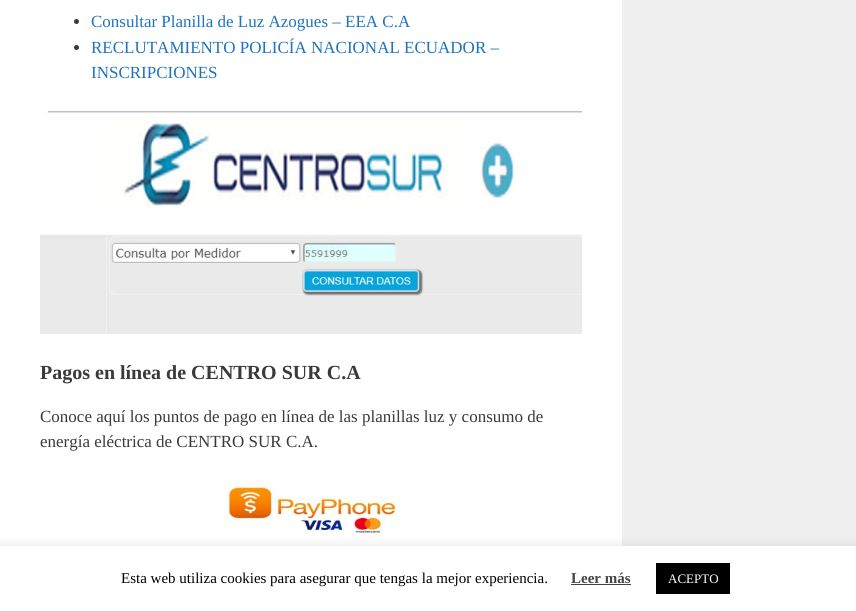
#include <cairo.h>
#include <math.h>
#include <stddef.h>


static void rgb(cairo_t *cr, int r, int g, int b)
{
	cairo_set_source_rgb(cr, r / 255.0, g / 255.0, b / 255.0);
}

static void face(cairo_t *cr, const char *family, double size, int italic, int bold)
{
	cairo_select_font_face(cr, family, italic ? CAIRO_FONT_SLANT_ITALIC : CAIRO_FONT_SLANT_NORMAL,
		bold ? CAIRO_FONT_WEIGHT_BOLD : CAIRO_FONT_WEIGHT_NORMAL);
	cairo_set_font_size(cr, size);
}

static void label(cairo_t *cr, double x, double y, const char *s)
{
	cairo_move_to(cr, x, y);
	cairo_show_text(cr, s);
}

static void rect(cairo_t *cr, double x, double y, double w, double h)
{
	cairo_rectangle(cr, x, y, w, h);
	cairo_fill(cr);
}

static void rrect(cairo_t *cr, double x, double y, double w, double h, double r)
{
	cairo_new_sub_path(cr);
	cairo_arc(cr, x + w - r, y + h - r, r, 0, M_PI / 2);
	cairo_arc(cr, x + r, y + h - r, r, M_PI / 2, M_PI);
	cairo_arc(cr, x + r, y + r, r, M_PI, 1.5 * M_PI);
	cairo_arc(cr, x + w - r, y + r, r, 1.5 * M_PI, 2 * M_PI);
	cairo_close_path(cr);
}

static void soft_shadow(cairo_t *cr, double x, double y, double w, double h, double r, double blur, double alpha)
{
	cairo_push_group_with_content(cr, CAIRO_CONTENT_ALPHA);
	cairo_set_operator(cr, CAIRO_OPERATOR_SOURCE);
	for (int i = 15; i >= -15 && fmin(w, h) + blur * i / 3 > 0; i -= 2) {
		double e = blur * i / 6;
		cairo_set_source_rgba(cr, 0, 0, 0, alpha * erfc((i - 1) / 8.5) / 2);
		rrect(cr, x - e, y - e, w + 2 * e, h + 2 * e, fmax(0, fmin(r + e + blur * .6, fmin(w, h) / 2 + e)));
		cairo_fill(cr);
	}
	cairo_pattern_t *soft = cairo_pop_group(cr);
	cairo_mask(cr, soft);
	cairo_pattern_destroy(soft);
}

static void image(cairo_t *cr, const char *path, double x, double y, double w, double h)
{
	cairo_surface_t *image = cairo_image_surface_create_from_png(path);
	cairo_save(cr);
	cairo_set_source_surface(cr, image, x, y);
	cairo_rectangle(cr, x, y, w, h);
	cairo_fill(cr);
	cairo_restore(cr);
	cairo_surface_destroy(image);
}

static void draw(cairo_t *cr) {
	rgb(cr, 239, 239, 239);
	cairo_paint(cr);
	rgb(cr, 255, 255, 255);
	rect(cr, 0, 0, 622, 546);
	rgb(cr, 58, 58, 58);
	cairo_arc(cr, 76.5, 21.5, 2.5, 0, 2 * M_PI);
	cairo_fill(cr);
	face(cr, "Liberation Serif", 17, 0, 0);
	rgb(cr, 30, 115, 190);
	label(cr, 91, 27, "Consultar Planilla de Luz Azogues – EEA C.A");
	rgb(cr, 58, 58, 58);
	cairo_new_path(cr);
	cairo_arc(cr, 76.5, 47.5, 2.5, 0, 2 * M_PI);
	cairo_fill(cr);
	rgb(cr, 30, 115, 190);
	label(cr, 91, 53, "RECLUTAMIENTO POLICÍA NACIONAL ECUADOR –");
	label(cr, 91, 78, "INSCRIPCIONES");
	image(cr, "image0.png", 40, 111, 542, 223);
	face(cr, "Liberation Serif", 20, 0, 1);
	rgb(cr, 58, 58, 58);
	label(cr, 40, 379, "Pagos en línea de CENTRO SUR C.A");
	face(cr, "Liberation Serif", 17, 0, 0);
	label(cr, 40, 422, "Conoce aquí los puntos de pago en línea de las planillas luz y consumo de");
	label(cr, 40, 447, "energía eléctrica de CENTRO SUR C.A.");
	image(cr, "image1.png", 48, 480, 514, 66);
	rgb(cr, 172, 171, 171);
	soft_shadow(cr, 0, 545, 856, 65, 0, 5, 0.3);
	rgb(cr, 255, 255, 255);
	rect(cr, 0, 546, 856, 65);
	face(cr, "Liberation Serif", 15, 0, 0);
	rgb(cr, 0, 0, 0);
	label(cr, 121, 583, "Esta web utiliza cookies para asegurar que tengas la mejor experiencia.");
	face(cr, "Liberation Serif", 15, 0, 1);
	rgb(cr, 68, 68, 68);
	label(cr, 571, 583, "Leer más");
	rect(cr, 571, 584, 60, 1);
	rgb(cr, 0, 0, 0);
	rect(cr, 656, 563, 74, 31);
	face(cr, "Liberation Serif", 13, 0, 0);
	rgb(cr, 255, 255, 255);
	label(cr, 668, 583, "ACEPTO");
}

int main(void) {
	cairo_surface_t *surface = cairo_image_surface_create(CAIRO_FORMAT_RGB24, 856, 611);
	cairo_t *cr = cairo_create(surface);
	cairo_font_options_t *options = cairo_font_options_create();
	cairo_font_options_set_hint_metrics(options, CAIRO_HINT_METRICS_OFF);
	cairo_font_options_set_hint_style(options, CAIRO_HINT_STYLE_NONE);
	cairo_set_font_options(cr, options);
	cairo_set_miter_limit(cr, 4);
	draw(cr);
	cairo_surface_write_to_png(surface, "render.png");
	cairo_font_options_destroy(options);
	cairo_destroy(cr);
	cairo_surface_destroy(surface);
	return 0;
}
